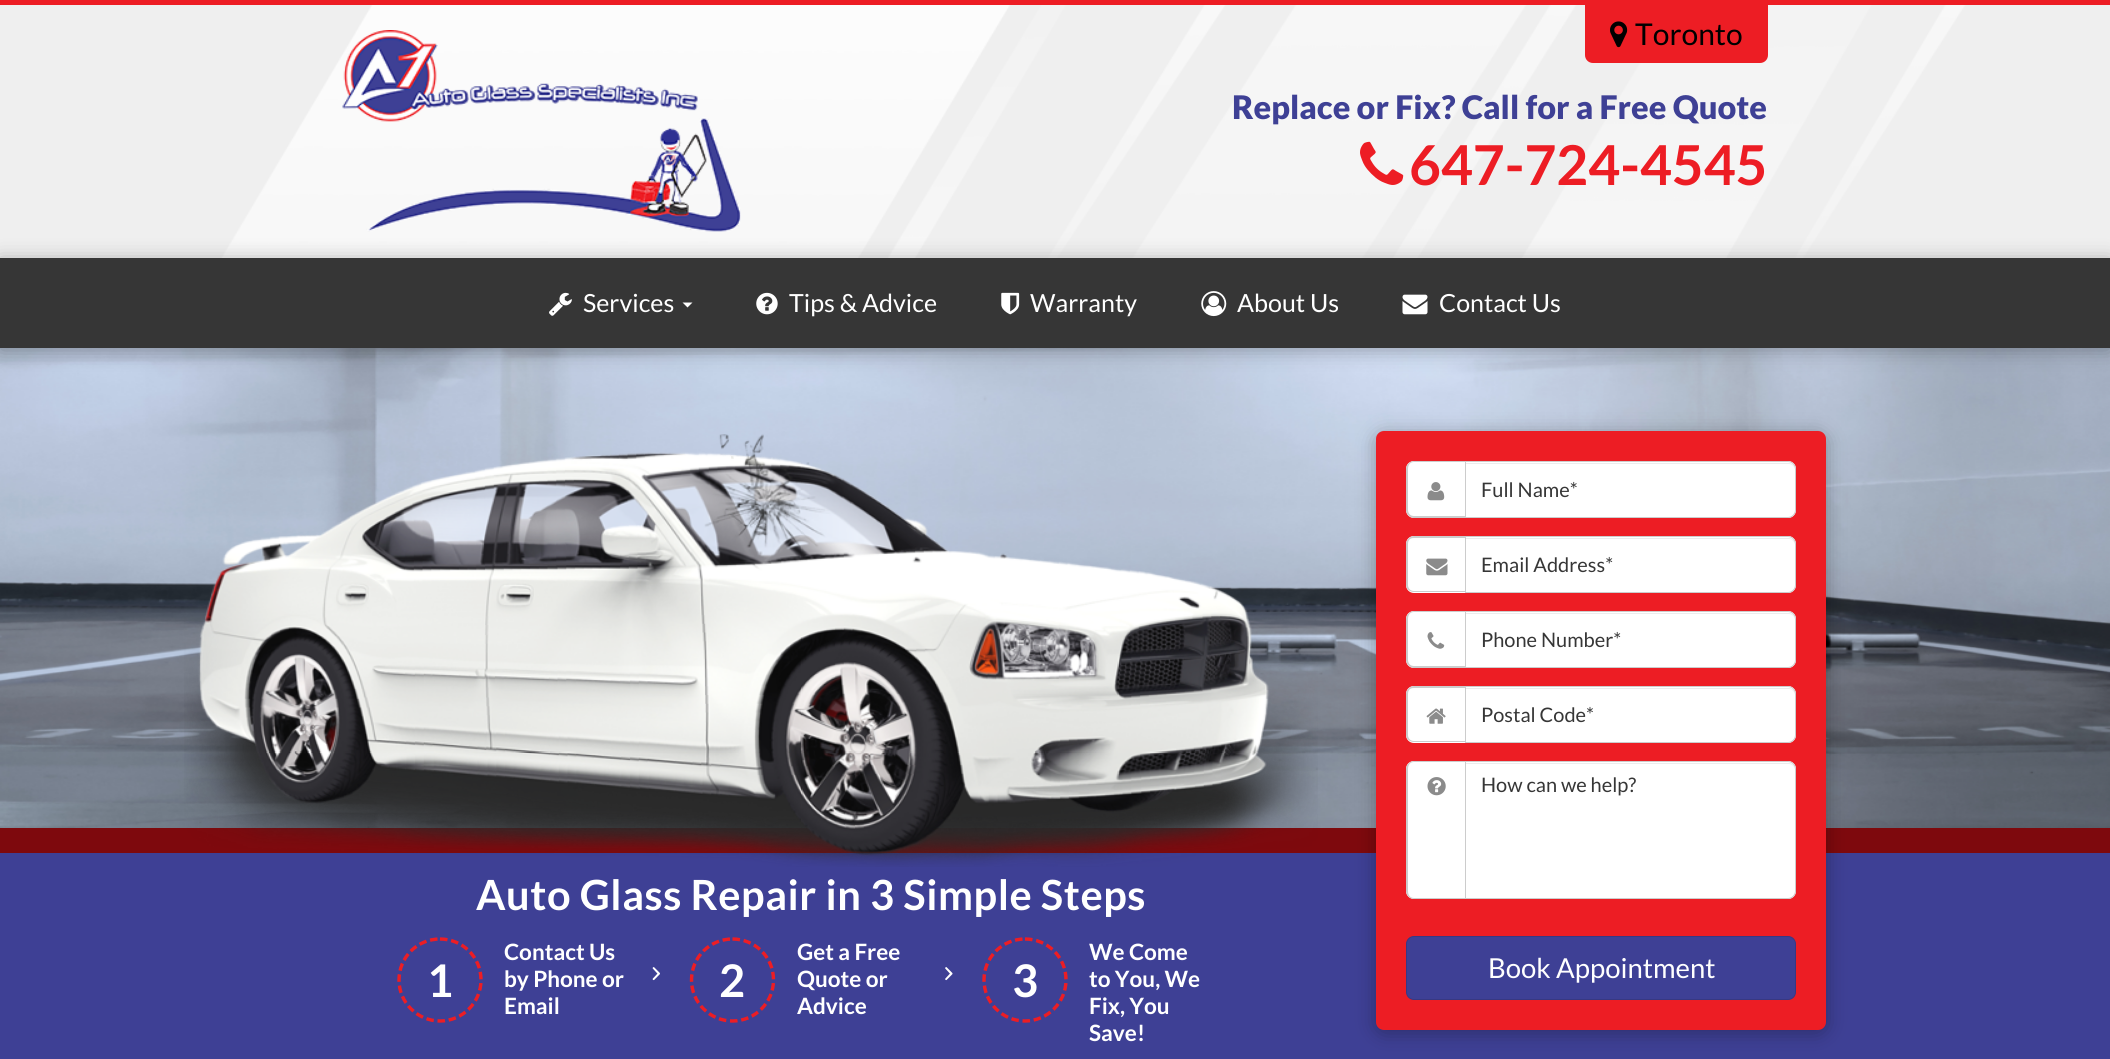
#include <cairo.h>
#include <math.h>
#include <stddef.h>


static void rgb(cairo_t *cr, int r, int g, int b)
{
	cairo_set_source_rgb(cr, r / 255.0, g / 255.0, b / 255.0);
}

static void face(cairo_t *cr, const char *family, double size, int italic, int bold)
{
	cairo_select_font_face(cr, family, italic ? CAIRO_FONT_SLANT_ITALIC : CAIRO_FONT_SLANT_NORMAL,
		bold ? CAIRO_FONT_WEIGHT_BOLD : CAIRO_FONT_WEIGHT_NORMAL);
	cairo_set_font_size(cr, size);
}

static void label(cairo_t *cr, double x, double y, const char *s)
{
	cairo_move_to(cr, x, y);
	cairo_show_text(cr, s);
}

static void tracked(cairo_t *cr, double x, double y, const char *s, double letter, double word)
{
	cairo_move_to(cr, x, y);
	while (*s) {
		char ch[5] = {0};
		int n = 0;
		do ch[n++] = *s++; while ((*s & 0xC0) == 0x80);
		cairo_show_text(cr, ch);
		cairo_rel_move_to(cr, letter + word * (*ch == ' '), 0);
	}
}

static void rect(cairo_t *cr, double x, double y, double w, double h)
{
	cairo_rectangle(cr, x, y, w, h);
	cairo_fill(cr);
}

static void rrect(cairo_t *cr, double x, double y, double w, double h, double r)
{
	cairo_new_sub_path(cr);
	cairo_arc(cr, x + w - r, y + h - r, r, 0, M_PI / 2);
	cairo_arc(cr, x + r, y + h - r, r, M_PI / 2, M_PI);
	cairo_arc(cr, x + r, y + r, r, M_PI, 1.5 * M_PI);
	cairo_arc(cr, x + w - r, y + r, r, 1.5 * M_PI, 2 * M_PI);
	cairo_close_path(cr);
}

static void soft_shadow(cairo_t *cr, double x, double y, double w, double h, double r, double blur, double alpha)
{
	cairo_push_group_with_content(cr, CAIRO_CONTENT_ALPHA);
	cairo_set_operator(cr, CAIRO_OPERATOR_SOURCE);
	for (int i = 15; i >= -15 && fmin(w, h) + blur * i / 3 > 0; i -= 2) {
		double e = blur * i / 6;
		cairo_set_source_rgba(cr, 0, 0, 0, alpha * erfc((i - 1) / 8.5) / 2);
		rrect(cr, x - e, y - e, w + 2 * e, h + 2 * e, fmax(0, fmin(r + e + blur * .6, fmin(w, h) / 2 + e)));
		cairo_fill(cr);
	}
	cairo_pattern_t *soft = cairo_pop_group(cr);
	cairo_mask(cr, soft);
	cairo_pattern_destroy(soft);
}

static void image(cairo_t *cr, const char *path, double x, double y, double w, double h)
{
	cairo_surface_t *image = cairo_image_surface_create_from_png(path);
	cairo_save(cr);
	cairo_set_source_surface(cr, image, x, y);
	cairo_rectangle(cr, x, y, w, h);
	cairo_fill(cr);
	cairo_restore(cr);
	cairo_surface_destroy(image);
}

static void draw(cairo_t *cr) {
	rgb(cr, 239, 239, 239);
	cairo_paint(cr);
	image(cr, "image0.png", 221, 5, 1745, 253);
	rgb(cr, 237, 29, 36);
	rect(cr, 0, 0, 2110, 5);
	image(cr, "image1.png", 342, 30, 399, 202);
	cairo_new_path(cr);
	cairo_move_to(cr, 1585, 5);
	cairo_line_to(cr, 1768, 5);
	cairo_line_to(cr, 1768, 55);
	cairo_curve_to(cr, 1768, 59.5, 1764.5, 63, 1760, 63);
	cairo_line_to(cr, 1593, 63);
	cairo_curve_to(cr, 1588.5, 63, 1585, 59.5, 1585, 55);
	cairo_close_path(cr);
	cairo_fill(cr);
	image(cr, "image2.png", 1610, 21, 18, 27);
	face(cr, "Lato", 30, 0, 0);
	rgb(cr, 0, 0, 0);
	label(cr, 1635, 45, "Toronto");
	face(cr, "Lato Black", 32.5, 0, 0);
	rgb(cr, 62, 64, 149);
	label(cr, 1232, 119, "Replace or Fix? Call for a Free Quote");
	image(cr, "image3.png", 1360, 141, 44, 44);
	face(cr, "Lato", 55, 0, 1);
	rgb(cr, 237, 29, 36);
	label(cr, 1409, 185, "647-724-4545");
	image(cr, "image9.png", 0, 348, 2110, 480);
	rgb(cr, 0, 0, 0);
	soft_shadow(cr, 0, 260, 2110, 90, 0, 10, 0.29);
	rgb(cr, 54, 54, 54);
	rect(cr, 0, 258, 2110, 90);
	image(cr, "image4.png", 549, 292, 23, 24);
	face(cr, "Lato", 25, 0, 0);
	rgb(cr, 255, 255, 255);
	label(cr, 583, 312, "Services");
	cairo_new_path(cr);
	cairo_move_to(cr, 682.5, 302.5);
	cairo_line_to(cr, 692.5, 302.5);
	cairo_line_to(cr, 687.5, 307.5);
	cairo_close_path(cr);
	cairo_fill(cr);
	image(cr, "image5.png", 756, 292, 22, 23);
	label(cr, 789, 312, "Tips & Advice");
	image(cr, "image6.png", 1001, 292, 19, 23);
	label(cr, 1030, 312, "Warranty");
	image(cr, "image7.png", 1201, 291, 26, 26);
	label(cr, 1237, 312, "About Us");
	image(cr, "image8.png", 1402, 294, 26, 21);
	label(cr, 1439, 312, "Contact Us");
	rgb(cr, 62, 64, 149);
	rect(cr, 0, 853, 2110, 206);
	rgb(cr, 126, 9, 13);
	rect(cr, 0, 828, 2110, 25);
	image(cr, "image10.png", 184, 434, 1134, 433);
	rgb(cr, 0, 0, 0);
	soft_shadow(cr, 1376, 434, 450, 599, 8, 10, 0.29);
	rgb(cr, 237, 29, 36);
	rrect(cr, 1376, 431, 450, 599, 8);
	cairo_fill(cr);
	rgb(cr, 255, 255, 255);
	cairo_new_path(cr);
	cairo_move_to(cr, 1414, 461);
	cairo_line_to(cr, 1465, 461);
	cairo_line_to(cr, 1465, 518);
	cairo_line_to(cr, 1414, 518);
	cairo_curve_to(cr, 1409.5, 518, 1406, 514.5, 1406, 510);
	cairo_line_to(cr, 1406, 469);
	cairo_curve_to(cr, 1406, 464.5, 1409.5, 461, 1414, 461);
	cairo_close_path(cr);
	cairo_fill(cr);
	rgb(cr, 204, 204, 204);
	cairo_set_fill_rule(cr, CAIRO_FILL_RULE_EVEN_ODD);
	cairo_new_path(cr);
	cairo_move_to(cr, 1414, 461);
	cairo_line_to(cr, 1465, 461);
	cairo_line_to(cr, 1465, 518);
	cairo_line_to(cr, 1414, 518);
	cairo_curve_to(cr, 1410, 518, 1406, 514, 1406, 510);
	cairo_line_to(cr, 1406, 469);
	cairo_curve_to(cr, 1406, 465, 1410, 461, 1414, 461);
	cairo_close_path(cr);
	cairo_move_to(cr, 1414, 462);
	cairo_line_to(cr, 1465, 462);
	cairo_line_to(cr, 1465, 516);
	cairo_line_to(cr, 1414, 516);
	cairo_curve_to(cr, 1410, 516, 1408, 513, 1408, 510);
	cairo_line_to(cr, 1408, 469);
	cairo_curve_to(cr, 1408, 465, 1410, 462, 1414, 462);
	cairo_close_path(cr);
	cairo_fill(cr);
	image(cr, "image11.png", 1427, 482, 18, 19);
	rgb(cr, 255, 255, 255);
	cairo_new_path(cr);
	cairo_move_to(cr, 1465, 461);
	cairo_line_to(cr, 1788, 461);
	cairo_curve_to(cr, 1792.5, 461, 1796, 464.5, 1796, 469);
	cairo_line_to(cr, 1796, 510);
	cairo_curve_to(cr, 1796, 514.5, 1792.5, 518, 1788, 518);
	cairo_line_to(cr, 1465, 518);
	cairo_close_path(cr);
	cairo_fill(cr);
	rgb(cr, 236, 236, 236);
	cairo_set_fill_rule(cr, CAIRO_FILL_RULE_WINDING);
	cairo_new_path(cr);
	cairo_move_to(cr, 1466, 464);
	cairo_line_to(cr, 1789, 464);
	cairo_curve_to(cr, 1792, 464, 1795, 467, 1795, 470);
	cairo_line_to(cr, 1795, 469);
	cairo_curve_to(cr, 1795, 466, 1792, 463, 1789, 463);
	cairo_line_to(cr, 1466, 463);
	cairo_close_path(cr);
	cairo_fill(cr);
	cairo_new_path(cr);
	cairo_move_to(cr, 1465.5, 461.5);
	cairo_line_to(cr, 1788, 461.5);
	cairo_curve_to(cr, 1792, 461.5, 1795.5, 465, 1795.5, 469);
	cairo_line_to(cr, 1795.5, 510);
	cairo_curve_to(cr, 1795.5, 514, 1792, 517.5, 1788, 517.5);
	cairo_line_to(cr, 1465.5, 517.5);
	cairo_close_path(cr);
	rgb(cr, 204, 204, 204);
	cairo_set_line_width(cr, 1);
	cairo_stroke(cr);
	face(cr, "Lato", 20, 0, 0);
	rgb(cr, 54, 54, 54);
	label(cr, 1481, 497, "Full Name*");
	rgb(cr, 255, 255, 255);
	cairo_new_path(cr);
	cairo_move_to(cr, 1414, 536);
	cairo_line_to(cr, 1465, 536);
	cairo_line_to(cr, 1465, 593);
	cairo_line_to(cr, 1414, 593);
	cairo_curve_to(cr, 1409.5, 593, 1406, 589.5, 1406, 585);
	cairo_line_to(cr, 1406, 544);
	cairo_curve_to(cr, 1406, 539.5, 1409.5, 536, 1414, 536);
	cairo_close_path(cr);
	cairo_fill(cr);
	rgb(cr, 204, 204, 204);
	cairo_set_fill_rule(cr, CAIRO_FILL_RULE_EVEN_ODD);
	cairo_new_path(cr);
	cairo_move_to(cr, 1414, 536);
	cairo_line_to(cr, 1465, 536);
	cairo_line_to(cr, 1465, 592);
	cairo_line_to(cr, 1414, 592);
	cairo_curve_to(cr, 1410, 592, 1406, 589, 1406, 585);
	cairo_line_to(cr, 1406, 544);
	cairo_curve_to(cr, 1406, 540, 1410, 536, 1414, 536);
	cairo_close_path(cr);
	cairo_move_to(cr, 1414, 538);
	cairo_line_to(cr, 1465, 538);
	cairo_line_to(cr, 1465, 591);
	cairo_line_to(cr, 1414, 591);
	cairo_curve_to(cr, 1410, 591, 1408, 588, 1408, 585);
	cairo_line_to(cr, 1408, 544);
	cairo_curve_to(cr, 1408, 540, 1410, 538, 1414, 538);
	cairo_close_path(cr);
	cairo_fill(cr);
	image(cr, "image12.png", 1426, 558, 22, 18);
	rgb(cr, 255, 255, 255);
	cairo_new_path(cr);
	cairo_move_to(cr, 1465, 536);
	cairo_line_to(cr, 1788, 536);
	cairo_curve_to(cr, 1792.5, 536, 1796, 539.5, 1796, 544);
	cairo_line_to(cr, 1796, 585);
	cairo_curve_to(cr, 1796, 589.5, 1792.5, 593, 1788, 593);
	cairo_line_to(cr, 1465, 593);
	cairo_close_path(cr);
	cairo_fill(cr);
	rgb(cr, 236, 236, 236);
	cairo_set_fill_rule(cr, CAIRO_FILL_RULE_WINDING);
	cairo_new_path(cr);
	cairo_move_to(cr, 1466, 539);
	cairo_line_to(cr, 1789, 539);
	cairo_curve_to(cr, 1792, 539, 1795, 542, 1795, 545);
	cairo_line_to(cr, 1795, 544);
	cairo_curve_to(cr, 1795, 541, 1792, 538, 1789, 538);
	cairo_line_to(cr, 1466, 538);
	cairo_close_path(cr);
	cairo_fill(cr);
	cairo_new_path(cr);
	cairo_move_to(cr, 1465.5, 536.5);
	cairo_line_to(cr, 1788, 536.5);
	cairo_curve_to(cr, 1792, 536.5, 1795.5, 540, 1795.5, 544);
	cairo_line_to(cr, 1795.5, 585);
	cairo_curve_to(cr, 1795.5, 589, 1792, 592.5, 1788, 592.5);
	cairo_line_to(cr, 1465.5, 592.5);
	cairo_close_path(cr);
	rgb(cr, 204, 204, 204);
	cairo_stroke(cr);
	rgb(cr, 54, 54, 54);
	label(cr, 1481, 572, "Email Address*");
	rgb(cr, 255, 255, 255);
	cairo_new_path(cr);
	cairo_move_to(cr, 1414, 611);
	cairo_line_to(cr, 1465, 611);
	cairo_line_to(cr, 1465, 668);
	cairo_line_to(cr, 1414, 668);
	cairo_curve_to(cr, 1409.5, 668, 1406, 664.5, 1406, 660);
	cairo_line_to(cr, 1406, 619);
	cairo_curve_to(cr, 1406, 614.5, 1409.5, 611, 1414, 611);
	cairo_close_path(cr);
	cairo_fill(cr);
	rgb(cr, 204, 204, 204);
	cairo_set_fill_rule(cr, CAIRO_FILL_RULE_EVEN_ODD);
	cairo_new_path(cr);
	cairo_move_to(cr, 1414, 611);
	cairo_line_to(cr, 1465, 611);
	cairo_line_to(cr, 1465, 668);
	cairo_line_to(cr, 1414, 668);
	cairo_curve_to(cr, 1410, 668, 1406, 664, 1406, 660);
	cairo_line_to(cr, 1406, 619);
	cairo_curve_to(cr, 1406, 615, 1410, 611, 1414, 611);
	cairo_close_path(cr);
	cairo_move_to(cr, 1414, 612);
	cairo_line_to(cr, 1465, 612);
	cairo_line_to(cr, 1465, 666);
	cairo_line_to(cr, 1414, 666);
	cairo_curve_to(cr, 1410, 666, 1408, 663, 1408, 660);
	cairo_line_to(cr, 1408, 619);
	cairo_curve_to(cr, 1408, 615, 1410, 612, 1414, 612);
	cairo_close_path(cr);
	cairo_fill(cr);
	image(cr, "image13.png", 1427, 632, 18, 17);
	rgb(cr, 255, 255, 255);
	cairo_new_path(cr);
	cairo_move_to(cr, 1465, 611);
	cairo_line_to(cr, 1788, 611);
	cairo_curve_to(cr, 1792.5, 611, 1796, 614.5, 1796, 619);
	cairo_line_to(cr, 1796, 660);
	cairo_curve_to(cr, 1796, 664.5, 1792.5, 668, 1788, 668);
	cairo_line_to(cr, 1465, 668);
	cairo_close_path(cr);
	cairo_fill(cr);
	rgb(cr, 236, 236, 236);
	cairo_set_fill_rule(cr, CAIRO_FILL_RULE_WINDING);
	cairo_new_path(cr);
	cairo_move_to(cr, 1466, 614);
	cairo_line_to(cr, 1789, 614);
	cairo_curve_to(cr, 1792, 614, 1795, 617, 1795, 620);
	cairo_line_to(cr, 1795, 619);
	cairo_curve_to(cr, 1795, 616, 1792, 613, 1789, 613);
	cairo_line_to(cr, 1466, 613);
	cairo_close_path(cr);
	cairo_fill(cr);
	cairo_new_path(cr);
	cairo_move_to(cr, 1465.5, 611.5);
	cairo_line_to(cr, 1788, 611.5);
	cairo_curve_to(cr, 1792, 611.5, 1795.5, 615, 1795.5, 619);
	cairo_line_to(cr, 1795.5, 660);
	cairo_curve_to(cr, 1795.5, 664, 1792, 667.5, 1788, 667.5);
	cairo_line_to(cr, 1465.5, 667.5);
	cairo_close_path(cr);
	rgb(cr, 204, 204, 204);
	cairo_stroke(cr);
	rgb(cr, 54, 54, 54);
	label(cr, 1481, 647, "Phone Number*");
	rgb(cr, 255, 255, 255);
	cairo_new_path(cr);
	cairo_move_to(cr, 1414, 686);
	cairo_line_to(cr, 1465, 686);
	cairo_line_to(cr, 1465, 743);
	cairo_line_to(cr, 1414, 743);
	cairo_curve_to(cr, 1409.5, 743, 1406, 739.5, 1406, 735);
	cairo_line_to(cr, 1406, 694);
	cairo_curve_to(cr, 1406, 689.5, 1409.5, 686, 1414, 686);
	cairo_close_path(cr);
	cairo_fill(cr);
	rgb(cr, 204, 204, 204);
	cairo_set_fill_rule(cr, CAIRO_FILL_RULE_EVEN_ODD);
	cairo_new_path(cr);
	cairo_move_to(cr, 1414, 686);
	cairo_line_to(cr, 1465, 686);
	cairo_line_to(cr, 1465, 742);
	cairo_line_to(cr, 1414, 742);
	cairo_curve_to(cr, 1410, 742, 1406, 739, 1406, 735);
	cairo_line_to(cr, 1406, 694);
	cairo_curve_to(cr, 1406, 690, 1410, 686, 1414, 686);
	cairo_close_path(cr);
	cairo_move_to(cr, 1414, 688);
	cairo_line_to(cr, 1465, 688);
	cairo_line_to(cr, 1465, 741);
	cairo_line_to(cr, 1414, 741);
	cairo_curve_to(cr, 1410, 741, 1408, 738, 1408, 735);
	cairo_line_to(cr, 1408, 694);
	cairo_curve_to(cr, 1408, 690, 1410, 688, 1414, 688);
	cairo_close_path(cr);
	cairo_fill(cr);
	image(cr, "image14.png", 1426, 708, 20, 16);
	rgb(cr, 255, 255, 255);
	cairo_new_path(cr);
	cairo_move_to(cr, 1465, 686);
	cairo_line_to(cr, 1788, 686);
	cairo_curve_to(cr, 1792.5, 686, 1796, 689.5, 1796, 694);
	cairo_line_to(cr, 1796, 735);
	cairo_curve_to(cr, 1796, 739.5, 1792.5, 743, 1788, 743);
	cairo_line_to(cr, 1465, 743);
	cairo_close_path(cr);
	cairo_fill(cr);
	rgb(cr, 236, 236, 236);
	cairo_set_fill_rule(cr, CAIRO_FILL_RULE_WINDING);
	cairo_new_path(cr);
	cairo_move_to(cr, 1466, 689);
	cairo_line_to(cr, 1789, 689);
	cairo_curve_to(cr, 1792, 689, 1795, 692, 1795, 695);
	cairo_line_to(cr, 1795, 694);
	cairo_curve_to(cr, 1795, 691, 1792, 688, 1789, 688);
	cairo_line_to(cr, 1466, 688);
	cairo_close_path(cr);
	cairo_fill(cr);
	cairo_new_path(cr);
	cairo_move_to(cr, 1465.5, 686.5);
	cairo_line_to(cr, 1788, 686.5);
	cairo_curve_to(cr, 1792, 686.5, 1795.5, 690, 1795.5, 694);
	cairo_line_to(cr, 1795.5, 735);
	cairo_curve_to(cr, 1795.5, 739, 1792, 742.5, 1788, 742.5);
	cairo_line_to(cr, 1465.5, 742.5);
	cairo_close_path(cr);
	rgb(cr, 204, 204, 204);
	cairo_stroke(cr);
	rgb(cr, 54, 54, 54);
	label(cr, 1481, 722, "Postal Code*");
	rgb(cr, 255, 255, 255);
	cairo_new_path(cr);
	cairo_move_to(cr, 1414, 761);
	cairo_line_to(cr, 1465, 761);
	cairo_line_to(cr, 1465, 899);
	cairo_line_to(cr, 1414, 899);
	cairo_curve_to(cr, 1409.5, 899, 1406, 895.5, 1406, 891);
	cairo_line_to(cr, 1406, 769);
	cairo_curve_to(cr, 1406, 764.5, 1409.5, 761, 1414, 761);
	cairo_close_path(cr);
	cairo_fill(cr);
	rgb(cr, 204, 204, 204);
	cairo_set_fill_rule(cr, CAIRO_FILL_RULE_EVEN_ODD);
	cairo_new_path(cr);
	cairo_move_to(cr, 1414, 761);
	cairo_line_to(cr, 1465, 761);
	cairo_line_to(cr, 1465, 899);
	cairo_line_to(cr, 1414, 899);
	cairo_curve_to(cr, 1410, 899, 1406, 895, 1406, 891);
	cairo_line_to(cr, 1406, 769);
	cairo_curve_to(cr, 1406, 765, 1410, 761, 1414, 761);
	cairo_close_path(cr);
	cairo_move_to(cr, 1414, 762);
	cairo_line_to(cr, 1465, 762);
	cairo_line_to(cr, 1465, 898);
	cairo_line_to(cr, 1414, 898);
	cairo_curve_to(cr, 1410, 898, 1408, 895, 1408, 891);
	cairo_line_to(cr, 1408, 769);
	cairo_curve_to(cr, 1408, 765, 1410, 762, 1414, 762);
	cairo_close_path(cr);
	cairo_fill(cr);
	image(cr, "image15.png", 1427, 777, 19, 19);
	rgb(cr, 255, 255, 255);
	cairo_new_path(cr);
	cairo_move_to(cr, 1465, 761);
	cairo_line_to(cr, 1788, 761);
	cairo_curve_to(cr, 1792.5, 761, 1796, 764.5, 1796, 769);
	cairo_line_to(cr, 1796, 891);
	cairo_curve_to(cr, 1796, 895.5, 1792.5, 899, 1788, 899);
	cairo_line_to(cr, 1465, 899);
	cairo_close_path(cr);
	cairo_fill(cr);
	rgb(cr, 236, 236, 236);
	cairo_set_fill_rule(cr, CAIRO_FILL_RULE_WINDING);
	cairo_new_path(cr);
	cairo_move_to(cr, 1466, 764);
	cairo_line_to(cr, 1789, 764);
	cairo_curve_to(cr, 1792, 764, 1795, 767, 1795, 770);
	cairo_line_to(cr, 1795, 769);
	cairo_curve_to(cr, 1795, 766, 1792, 763, 1789, 763);
	cairo_line_to(cr, 1466, 763);
	cairo_close_path(cr);
	cairo_fill(cr);
	cairo_new_path(cr);
	cairo_move_to(cr, 1465.5, 761.5);
	cairo_line_to(cr, 1788, 761.5);
	cairo_curve_to(cr, 1792, 761.5, 1795.5, 765, 1795.5, 769);
	cairo_line_to(cr, 1795.5, 891);
	cairo_curve_to(cr, 1795.5, 895, 1792, 898.5, 1788, 898.5);
	cairo_line_to(cr, 1465.5, 898.5);
	cairo_close_path(cr);
	rgb(cr, 204, 204, 204);
	cairo_stroke(cr);
	rgb(cr, 54, 54, 54);
	label(cr, 1481, 792, "How can we help?");
	rgb(cr, 62, 64, 149);
	rrect(cr, 1406.5, 936.5, 389, 63, 7.5);
	cairo_fill_preserve(cr);
	rgb(cr, 55, 56, 131);
	cairo_stroke(cr);
	face(cr, "Lato", 27.5, 0, 0);
	rgb(cr, 255, 255, 255);
	label(cr, 1488, 978, "Book Appointment");
	face(cr, "Lato", 41.6, 0, 1);
	tracked(cr, 476, 910, "Auto Glass Repair in 3 Simple Steps", 0.55, 0);
	cairo_new_path(cr);
	cairo_move_to(cr, 440, 939);
	cairo_curve_to(cr, 462.5, 939, 481, 957, 481, 980);
	cairo_curve_to(cr, 481, 1002.5, 462.5, 1021, 440, 1021);
	cairo_curve_to(cr, 417.5, 1021, 399, 1002.5, 399, 980);
	cairo_curve_to(cr, 399, 957, 417.5, 939, 440, 939);
	cairo_close_path(cr);
	rgb(cr, 237, 29, 36);
	cairo_set_line_width(cr, 3.4);
	cairo_set_dash(cr, (double[]){7.5, 3.75}, 2, 0);
	cairo_stroke(cr);
	face(cr, "Lato", 45, 0, 1);
	rgb(cr, 255, 255, 255);
	label(cr, 427, 997, "1");
	face(cr, "Lato", 22.5, 0, 1);
	label(cr, 504, 960, "Contact Us");
	label(cr, 504, 987, "by Phone or");
	label(cr, 504, 1014, "Email");
	image(cr, "image16.png", 652, 967, 8, 14);
	cairo_new_path(cr);
	cairo_move_to(cr, 732.5, 939);
	cairo_curve_to(cr, 755, 939, 773.5, 957, 773.5, 980);
	cairo_curve_to(cr, 773.5, 1002.5, 755, 1021, 732.5, 1021);
	cairo_curve_to(cr, 710, 1021, 691.5, 1002.5, 691.5, 980);
	cairo_curve_to(cr, 691.5, 957, 710, 939, 732.5, 939);
	cairo_close_path(cr);
	rgb(cr, 237, 29, 36);
	cairo_stroke(cr);
	face(cr, "Lato", 45, 0, 1);
	rgb(cr, 255, 255, 255);
	label(cr, 719, 997, "2");
	face(cr, "Lato", 22.5, 0, 1);
	label(cr, 797, 960, "Get a Free");
	label(cr, 797, 987, "Quote or");
	label(cr, 797, 1014, "Advice");
	image(cr, "image17.png", 945, 967, 8, 14);
	cairo_new_path(cr);
	cairo_move_to(cr, 1025, 939);
	cairo_curve_to(cr, 1047.5, 939, 1066, 957, 1066, 980);
	cairo_curve_to(cr, 1066, 1002.5, 1047.5, 1021, 1025, 1021);
	cairo_curve_to(cr, 1002.5, 1021, 984, 1002.5, 984, 980);
	cairo_curve_to(cr, 984, 957, 1002.5, 939, 1025, 939);
	cairo_close_path(cr);
	rgb(cr, 237, 29, 36);
	cairo_stroke(cr);
	face(cr, "Lato", 45, 0, 1);
	rgb(cr, 255, 255, 255);
	label(cr, 1012, 997, "3");
	face(cr, "Lato", 22.5, 0, 1);
	label(cr, 1089, 960, "We Come");
	label(cr, 1089, 987, "to You, We");
	label(cr, 1089, 1014, "Fix, You");
	label(cr, 1089, 1041, "Save!");
}

int main(void) {
	cairo_surface_t *surface = cairo_image_surface_create(CAIRO_FORMAT_RGB24, 2110, 1059);
	cairo_t *cr = cairo_create(surface);
	cairo_font_options_t *options = cairo_font_options_create();
	cairo_font_options_set_hint_metrics(options, CAIRO_HINT_METRICS_OFF);
	cairo_font_options_set_hint_style(options, CAIRO_HINT_STYLE_NONE);
	cairo_set_font_options(cr, options);
	cairo_set_miter_limit(cr, 4);
	draw(cr);
	cairo_surface_write_to_png(surface, "render.png");
	cairo_font_options_destroy(options);
	cairo_destroy(cr);
	cairo_surface_destroy(surface);
	return 0;
}
